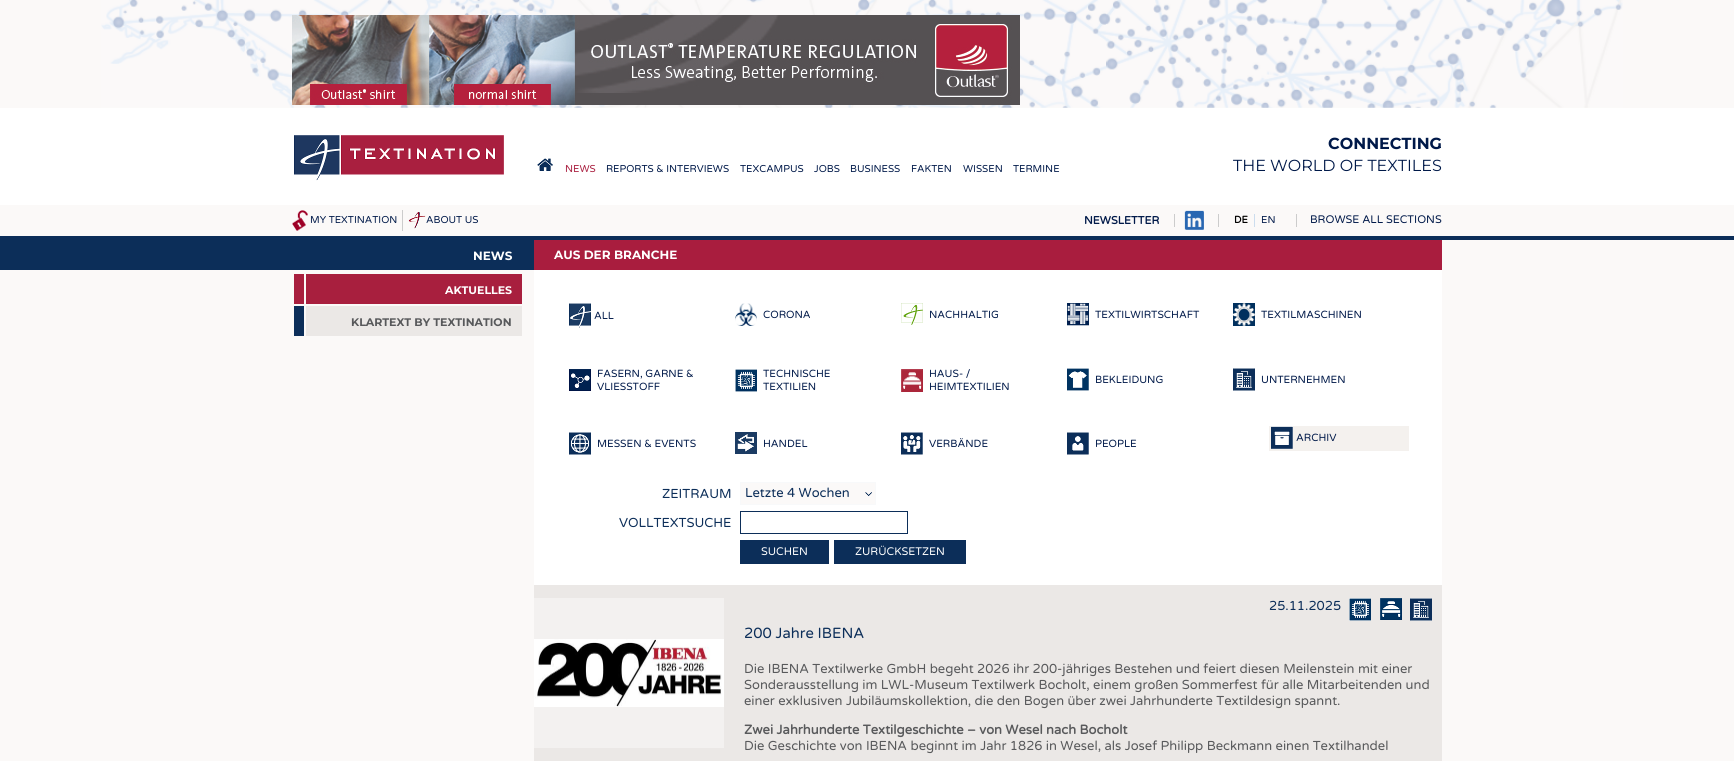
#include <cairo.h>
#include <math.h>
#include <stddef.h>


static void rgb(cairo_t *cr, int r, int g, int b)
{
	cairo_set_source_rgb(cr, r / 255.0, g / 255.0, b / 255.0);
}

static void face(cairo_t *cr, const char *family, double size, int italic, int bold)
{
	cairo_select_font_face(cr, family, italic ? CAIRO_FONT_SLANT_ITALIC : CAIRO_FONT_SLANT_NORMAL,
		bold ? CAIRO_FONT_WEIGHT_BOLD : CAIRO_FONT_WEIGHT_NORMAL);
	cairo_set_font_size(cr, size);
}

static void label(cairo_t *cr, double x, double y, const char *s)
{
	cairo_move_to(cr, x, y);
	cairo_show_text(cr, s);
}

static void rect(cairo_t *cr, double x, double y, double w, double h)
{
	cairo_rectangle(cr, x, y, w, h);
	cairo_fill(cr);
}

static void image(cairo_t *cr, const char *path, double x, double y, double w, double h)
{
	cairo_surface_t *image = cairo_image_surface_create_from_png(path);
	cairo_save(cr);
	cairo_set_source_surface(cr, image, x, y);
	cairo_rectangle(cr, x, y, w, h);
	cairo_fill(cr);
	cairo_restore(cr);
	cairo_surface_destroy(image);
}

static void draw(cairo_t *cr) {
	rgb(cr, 251, 249, 248);
	cairo_paint(cr);
	rgb(cr, 12, 46, 89);
	rect(cr, 0, 236, 1734, 2);
	image(cr, "image0.png", 101, 0, 1522, 108);
	image(cr, "image1.png", 292, 15, 728, 90);
	rgb(cr, 255, 255, 255);
	rect(cr, 0, 108, 1734, 97);
	image(cr, "image2.png", 537, 158, 16, 13);
	face(cr, "Varela Round", 10, 0, 0);
	rgb(cr, 169, 29, 62);
	label(cr, 565, 172, "NEWS");
	rgb(cr, 0, 25, 73);
	label(cr, 606, 172, "REPORTS & INTERVIEWS");
	label(cr, 740, 172, "TEXCAMPUS");
	label(cr, 814, 172, "JOBS");
	label(cr, 850, 172, "BUSINESS");
	label(cr, 911, 172, "FAKTEN");
	label(cr, 963, 172, "WISSEN");
	label(cr, 1013, 172, "TERMINE");
	image(cr, "image3.png", 294, 135, 210, 46);
	face(cr, "Montserrat Thin", 16, 0, 0);
	label(cr, 1328, 149, "CONNECTING");
	face(cr, "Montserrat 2 Thin", 16, 0, 0);
	label(cr, 1233, 171, "THE WORLD OF TEXTILES");
	image(cr, "image4.png", 292, 210, 16, 21);
	face(cr, "Varela Round", 10, 0, 0);
	label(cr, 310, 223, "MY TEXTINATION");
	rgb(cr, 204, 204, 204);
	rect(cr, 402, 210, 1, 21);
	image(cr, "image5.png", 408, 212, 18, 17);
	rgb(cr, 0, 25, 73);
	label(cr, 426, 223, "ABOUT US");
	rgb(cr, 204, 204, 204);
	rect(cr, 1174, 214, 1, 13);
	face(cr, "Varela Round", 11, 0, 1);
	rgb(cr, 0, 25, 73);
	label(cr, 1084, 224, "NEWSLETTER");
	rgb(cr, 204, 204, 204);
	rect(cr, 1218, 214, 1, 13);
	image(cr, "image6.png", 1184, 210, 20, 20);
	rect(cr, 1296, 214, 1, 13);
	face(cr, "Varela Round", 10, 0, 1);
	rgb(cr, 0, 0, 0);
	label(cr, 1234, 223, "DE");
	rgb(cr, 204, 221, 238);
	rect(cr, 1254, 214, 1, 13);
	face(cr, "Varela Round", 10, 0, 0);
	rgb(cr, 0, 25, 73);
	label(cr, 1261, 223, "EN");
	face(cr, "Varela Round", 11, 0, 0);
	label(cr, 1310, 223, "BROWSE ALL SECTIONS");
	image(cr, "image7.png", 0, 238, 1734, 32);
	face(cr, "Montserrat Thin", 12, 0, 0);
	rgb(cr, 255, 255, 255);
	label(cr, 473, 260, "NEWS");
	image(cr, "image8.png", 294, 274, 228, 30);
	face(cr, "Montserrat Thin", 11, 0, 0);
	label(cr, 445, 294, "AKTUELLES");
	image(cr, "image9.png", 294, 306, 228, 30);
	rgb(cr, 88, 89, 91);
	label(cr, 351, 326, "KLARTEXT BY TEXTINATION");
	rgb(cr, 255, 255, 255);
	rect(cr, 534, 270, 908, 315);
	rgb(cr, 169, 29, 62);
	rect(cr, 534, 240, 908, 30);
	face(cr, "Montserrat Thin", 12, 0, 0);
	rgb(cr, 255, 255, 255);
	label(cr, 554, 259, "AUS DER BRANCHE");
	image(cr, "image10.png", 569, 303, 22, 25);
	face(cr, "Varela Round", 10.4, 0, 0);
	rgb(cr, 0, 25, 73);
	label(cr, 594, 319, "ALL");
	image(cr, "image11.png", 735, 303, 22, 23);
	label(cr, 763, 318, "CORONA");
	image(cr, "image12.png", 901, 303, 22, 22);
	label(cr, 929, 318, "NACHHALTIG");
	image(cr, "image13.png", 1067, 303, 22, 23);
	label(cr, 1095, 318, "TEXTILWIRTSCHAFT");
	image(cr, "image14.png", 1233, 303, 22, 23);
	label(cr, 1261, 318, "TEXTILMASCHINEN");
	image(cr, "image15.png", 569, 369, 22, 22);
	label(cr, 597, 377, "FASERN, GARNE &");
	label(cr, 597, 390, "VLIESSTOFF");
	image(cr, "image16.png", 735, 369, 22, 23);
	label(cr, 763, 377, "TECHNISCHE");
	label(cr, 763, 390, "TEXTILIEN");
	image(cr, "image17.png", 901, 369, 22, 23);
	label(cr, 929, 377, "HAUS- /");
	label(cr, 929, 390, "HEIMTEXTILIEN");
	image(cr, "image18.png", 1067, 368, 22, 23);
	label(cr, 1095, 383, "BEKLEIDUNG");
	image(cr, "image19.png", 1233, 368, 22, 23);
	label(cr, 1261, 383, "UNTERNEHMEN");
	image(cr, "image20.png", 569, 432, 22, 23);
	label(cr, 597, 447, "MESSEN & EVENTS");
	image(cr, "image21.png", 735, 432, 22, 22);
	label(cr, 763, 447, "HANDEL");
	image(cr, "image22.png", 901, 432, 22, 23);
	label(cr, 929, 447, "VERBÄNDE");
	image(cr, "image23.png", 1067, 432, 22, 23);
	label(cr, 1095, 447, "PEOPLE");
	rgb(cr, 244, 241, 238);
	rect(cr, 1269, 426, 140, 25);
	image(cr, "image24.png", 1271, 426, 22, 23);
	rgb(cr, 0, 25, 73);
	label(cr, 1296, 441, "ARCHIV");
	face(cr, "Varela Round", 13, 0, 0);
	rgb(cr, 12, 46, 89);
	label(cr, 662, 498, "ZEITRAUM");
	rgb(cr, 251, 249, 248);
	rect(cr, 741, 483, 134, 21);
	image(cr, "image25.png", 865, 492, 7, 4);
	cairo_rectangle(cr, 740.5, 482.5, 135, 22);
	rgb(cr, 248, 249, 250);
	cairo_set_line_width(cr, 1);
	cairo_stroke(cr);
	rgb(cr, 12, 46, 89);
	label(cr, 745, 497, "Letzte 4 Wochen");
	label(cr, 619, 527, "VOLLTEXTSUCHE");
	cairo_rectangle(cr, 740.5, 511.5, 167, 22);
	cairo_stroke(cr);
	rect(cr, 740, 540, 89, 24);
	face(cr, "Varela Round", 11, 0, 0);
	rgb(cr, 255, 255, 255);
	label(cr, 761, 555, "SUCHEN");
	rgb(cr, 12, 46, 89);
	rect(cr, 834, 540, 132, 24);
	rgb(cr, 255, 255, 255);
	label(cr, 855, 555, "ZURÜCKSETZEN");
	rgb(cr, 235, 232, 230);
	rect(cr, 534, 585, 908, 176);
	rgb(cr, 243, 241, 240);
	rect(cr, 534, 598, 190, 150);
	image(cr, "image26.png", 534, 639, 190, 68);
	face(cr, "Varela Round", 13, 0, 0);
	rgb(cr, 12, 46, 89);
	label(cr, 1269, 610, "25.11.2025");
	image(cr, "image16.png", 1349, 598, 22, 23);
	image(cr, "image27.png", 1380, 598, 22, 22);
	image(cr, "image19.png", 1410, 598, 22, 23);
	face(cr, "Varela Round", 14.75, 0, 0);
	label(cr, 744, 638, "200 Jahre IBENA");
	face(cr, "Varela Round", 13, 0, 0);
	rgb(cr, 88, 89, 91);
	label(cr, 744, 673, "Die IBENA Textilwerke GmbH begeht 2026 ihr 200-jähriges Bestehen und feiert diesen Meilenstein mit einer");
	label(cr, 744, 689, "Sonderausstellung im LWL-Museum Textilwerk Bocholt, einem großen Sommerfest für alle Mitarbeitenden und");
	label(cr, 744, 705, "einer exklusiven Jubiläumskollektion, die den Bogen über zwei Jahrhunderte Textildesign spannt.");
	face(cr, "Varela Round", 13, 0, 1);
	label(cr, 744, 734, "Zwei Jahrhunderte Textilgeschichte – von Wesel nach Bocholt");
	face(cr, "Varela Round", 13, 0, 0);
	label(cr, 744, 750, "Die Geschichte von IBENA beginnt im Jahr 1826 in Wesel, als Josef Philipp Beckmann einen Textilhandel");
}

int main(void) {
	cairo_surface_t *surface = cairo_image_surface_create(CAIRO_FORMAT_RGB24, 1734, 761);
	cairo_t *cr = cairo_create(surface);
	cairo_font_options_t *options = cairo_font_options_create();
	cairo_font_options_set_hint_metrics(options, CAIRO_HINT_METRICS_OFF);
	cairo_font_options_set_hint_style(options, CAIRO_HINT_STYLE_NONE);
	cairo_set_font_options(cr, options);
	cairo_set_miter_limit(cr, 4);
	draw(cr);
	cairo_surface_write_to_png(surface, "render.png");
	cairo_font_options_destroy(options);
	cairo_destroy(cr);
	cairo_surface_destroy(surface);
	return 0;
}
